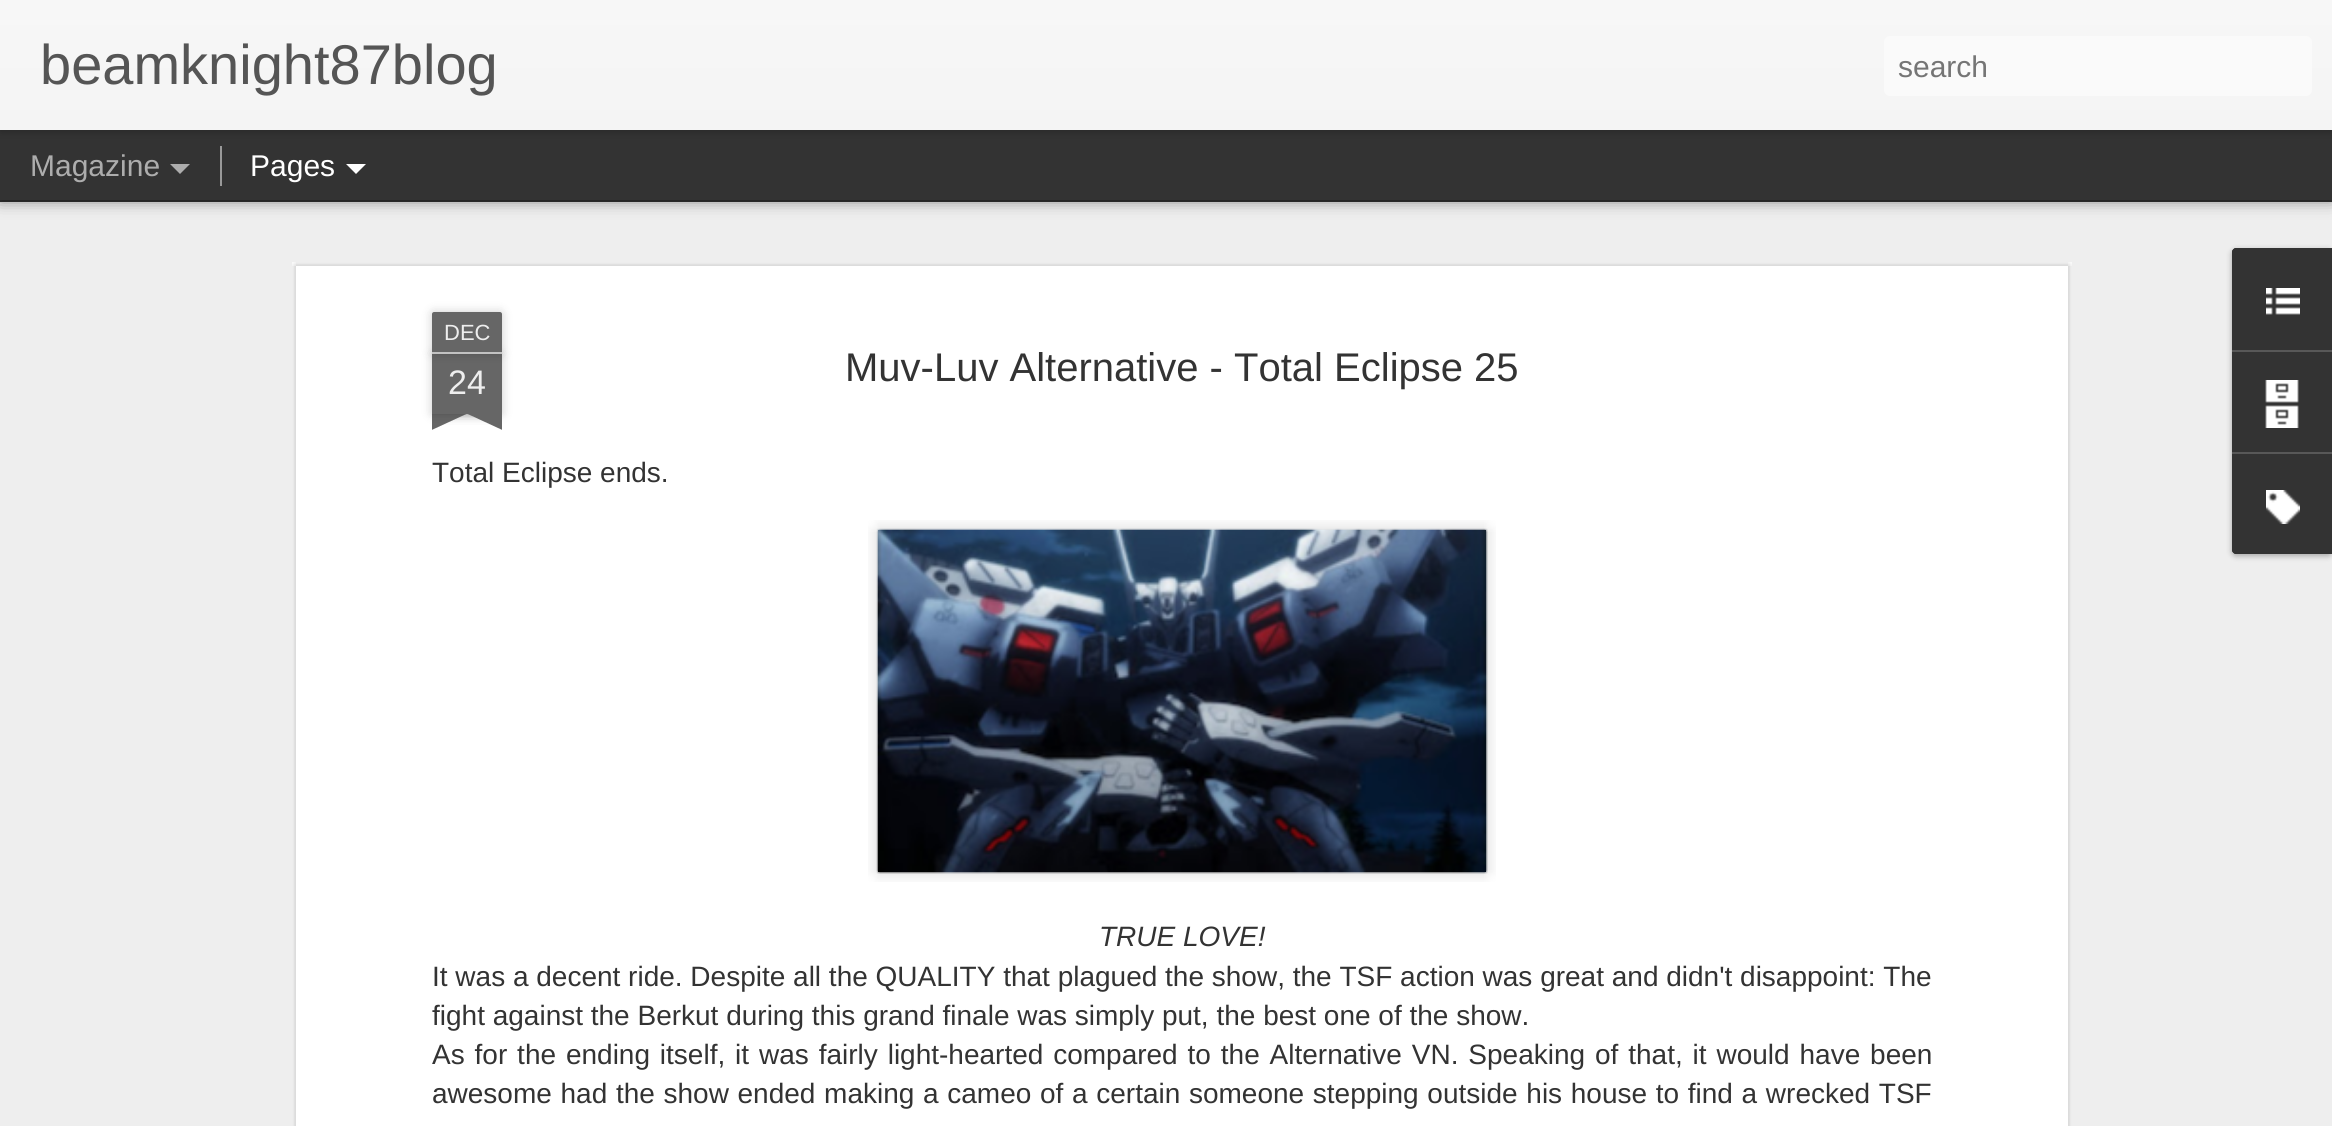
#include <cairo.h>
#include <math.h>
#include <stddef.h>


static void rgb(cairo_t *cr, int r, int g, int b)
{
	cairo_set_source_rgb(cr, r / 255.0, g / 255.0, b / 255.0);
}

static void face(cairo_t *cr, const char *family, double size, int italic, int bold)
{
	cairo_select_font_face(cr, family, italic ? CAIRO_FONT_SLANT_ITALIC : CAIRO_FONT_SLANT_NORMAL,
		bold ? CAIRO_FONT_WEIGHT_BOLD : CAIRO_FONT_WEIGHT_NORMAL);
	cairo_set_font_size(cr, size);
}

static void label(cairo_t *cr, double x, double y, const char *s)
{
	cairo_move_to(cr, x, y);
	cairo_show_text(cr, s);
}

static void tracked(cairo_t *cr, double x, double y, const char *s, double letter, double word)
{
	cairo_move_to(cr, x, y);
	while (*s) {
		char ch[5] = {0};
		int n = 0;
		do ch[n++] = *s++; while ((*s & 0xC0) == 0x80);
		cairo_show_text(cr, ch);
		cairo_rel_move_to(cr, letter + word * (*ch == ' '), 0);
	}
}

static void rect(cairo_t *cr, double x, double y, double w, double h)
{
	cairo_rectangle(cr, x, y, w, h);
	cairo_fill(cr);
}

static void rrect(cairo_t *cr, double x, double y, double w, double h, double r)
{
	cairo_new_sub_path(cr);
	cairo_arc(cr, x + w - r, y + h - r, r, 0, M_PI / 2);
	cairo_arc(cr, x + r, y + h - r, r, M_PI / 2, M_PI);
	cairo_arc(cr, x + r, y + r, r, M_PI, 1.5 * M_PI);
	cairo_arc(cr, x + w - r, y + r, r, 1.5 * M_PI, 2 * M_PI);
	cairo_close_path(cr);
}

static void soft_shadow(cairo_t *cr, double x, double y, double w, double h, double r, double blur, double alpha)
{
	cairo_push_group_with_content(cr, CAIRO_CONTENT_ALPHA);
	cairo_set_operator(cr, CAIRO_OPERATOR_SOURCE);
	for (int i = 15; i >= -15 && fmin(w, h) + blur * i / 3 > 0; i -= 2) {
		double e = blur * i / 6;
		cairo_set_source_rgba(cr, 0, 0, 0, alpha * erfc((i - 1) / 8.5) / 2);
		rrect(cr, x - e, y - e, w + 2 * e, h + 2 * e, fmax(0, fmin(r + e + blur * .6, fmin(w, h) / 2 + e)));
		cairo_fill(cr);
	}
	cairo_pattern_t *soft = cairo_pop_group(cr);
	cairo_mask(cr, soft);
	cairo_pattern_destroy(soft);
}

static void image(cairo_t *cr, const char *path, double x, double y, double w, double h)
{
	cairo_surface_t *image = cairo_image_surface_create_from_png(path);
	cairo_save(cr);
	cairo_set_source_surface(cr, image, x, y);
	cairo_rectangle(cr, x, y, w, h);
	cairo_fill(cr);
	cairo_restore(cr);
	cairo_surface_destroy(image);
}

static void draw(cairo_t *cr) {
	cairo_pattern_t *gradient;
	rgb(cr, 51, 51, 51);
	cairo_paint(cr);
	rgb(cr, 238, 238, 238);
	rect(cr, 0, 202, 2332, 924);
	rgb(cr, 0, 0, 0);
	soft_shadow(cr, 0, 130, 2332, 70, 0, 8, 0.5);
	rgb(cr, 51, 51, 51);
	rect(cr, 0, 130, 2332, 70);
	rgb(cr, 0, 0, 0);
	soft_shadow(cr, 0, 0, 2332, 130, 0, 5, 0.3);
	gradient = cairo_pattern_create_linear(0, 0, 0, 130);
	cairo_pattern_add_color_stop_rgba(gradient, 0, 0.969, 0.969, 0.969, 1);
	cairo_pattern_add_color_stop_rgba(gradient, 1, 0.957, 0.957, 0.957, 1);
	cairo_set_source(cr, gradient);
	cairo_pattern_destroy(gradient);
	rect(cr, 0, 0, 2332, 130);
	face(cr, "Liberation Sans", 56, 0, 0);
	rgb(cr, 85, 85, 85);
	label(cr, 40, 84, "beamknight87blog");
	rgb(cr, 250, 250, 250);
	rrect(cr, 1884, 36, 428, 60, 6);
	cairo_fill(cr);
	face(cr, "Liberation Sans", 30, 0, 0);
	rgb(cr, 117, 117, 117);
	label(cr, 1898, 77, "search");
	rgb(cr, 173, 173, 173);
	label(cr, 30, 176, "Magazine");
	cairo_new_path(cr);
	cairo_move_to(cr, 170, 164);
	cairo_line_to(cr, 190, 164);
	cairo_line_to(cr, 180, 174);
	cairo_close_path(cr);
	cairo_fill(cr);
	rgb(cr, 153, 153, 153);
	rect(cr, 220, 146, 2, 40);
	rgb(cr, 255, 255, 255);
	label(cr, 250, 176, "Pages");
	cairo_new_path(cr);
	cairo_move_to(cr, 346, 164);
	cairo_line_to(cr, 366, 164);
	cairo_line_to(cr, 356, 174);
	cairo_close_path(cr);
	cairo_fill(cr);
	rect(cr, 292, 262, 1780, 864);
	image(cr, "image0.png", 292, 262, 1780, 864);
	rgb(cr, 0, 0, 0);
	soft_shadow(cr, 432, 354, 70, 60, 0, 5, 0.2);
	rgb(cr, 102, 102, 102);
	rect(cr, 432, 354, 70, 60);
	rgb(cr, 0, 0, 0);
	soft_shadow(cr, 432, 312, 70, 42, 2, 5, 0.2);
	rgb(cr, 102, 102, 102);
	cairo_new_path(cr);
	cairo_move_to(cr, 434, 312);
	cairo_line_to(cr, 500, 312);
	cairo_curve_to(cr, 501, 312, 502, 313, 502, 314);
	cairo_line_to(cr, 502, 354);
	cairo_line_to(cr, 432, 354);
	cairo_line_to(cr, 432, 314);
	cairo_curve_to(cr, 432, 313, 433, 312, 434, 312);
	cairo_close_path(cr);
	cairo_fill(cr);
	rgb(cr, 194, 194, 194);
	rect(cr, 432, 352, 70, 2);
	face(cr, "Liberation Sans", 22, 0, 0);
	rgb(cr, 238, 238, 238);
	label(cr, 444, 340, "DEC");
	face(cr, "Liberation Sans", 34, 0, 0);
	label(cr, 448, 394, "24");
	cairo_save(cr);
	cairo_rectangle(cr, 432, 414, 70, 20);
	cairo_clip(cr);
	rgb(cr, 0, 0, 0);
	soft_shadow(cr, 414, 394, 100, 20, 0, 5, 0.2);
	cairo_restore(cr);
	cairo_save(cr);
	cairo_rectangle(cr, 432, 414, 70, 20);
	cairo_clip(cr);
	rgb(cr, 102, 102, 102);
	cairo_new_path(cr);
	cairo_move_to(cr, 414, 416);
	cairo_line_to(cr, 505, 374);
	cairo_line_to(cr, 514, 392);
	cairo_line_to(cr, 423, 434);
	cairo_close_path(cr);
	cairo_fill(cr);
	cairo_restore(cr);
	cairo_save(cr);
	cairo_rectangle(cr, 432, 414, 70, 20);
	cairo_clip(cr);
	rgb(cr, 0, 0, 0);
	soft_shadow(cr, 420, 394, 100, 20, 0, 5, 0.2);
	cairo_restore(cr);
	cairo_save(cr);
	cairo_rectangle(cr, 432, 414, 70, 20);
	cairo_clip(cr);
	rgb(cr, 102, 102, 102);
	cairo_new_path(cr);
	cairo_move_to(cr, 429, 374);
	cairo_line_to(cr, 520, 416);
	cairo_line_to(cr, 511, 434);
	cairo_line_to(cr, 420, 392);
	cairo_close_path(cr);
	cairo_fill(cr);
	cairo_restore(cr);
	face(cr, "Liberation Sans", 40, 0, 0);
	rgb(cr, 51, 51, 51);
	label(cr, 845, 381, "Muv-Luv Alternative - Total Eclipse 25");
	face(cr, "Liberation Sans", 28, 0, 0);
	label(cr, 432, 482, "Total Eclipse ends.");
	image(cr, "image1.png", 868, 520, 628, 362);
	image(cr, "image2.png", 876, 528, 612, 346);
	face(cr, "Liberation Sans", 28, 1, 0);
	label(cr, 1099, 946, "TRUE LOVE!");
	face(cr, "Liberation Sans", 28, 0, 0);
	label(cr, 432, 986, "It was a decent ride. Despite all the QUALITY that plagued the show, the TSF action was great and didn't disappoint: The");
	label(cr, 432, 1025, "fight against the Berkut during this grand finale was simply put, the best one of the show.");
	tracked(cr, 432, 1064, "As for the ending itself, it was fairly light-hearted compared to the Alternative VN. Speaking of that, it would have been", 0, 2.1);
	tracked(cr, 432, 1103, "awesome had the show ended making a cameo of a certain someone stepping outside his house to find a wrecked TSF", 0, 0.9);
	rgb(cr, 0, 0, 0);
	soft_shadow(cr, 2232, 250, 100, 306, 4, 3, 0.3);
	rgb(cr, 51, 51, 51);
	cairo_new_path(cr);
	cairo_move_to(cr, 2236, 248);
	cairo_line_to(cr, 2332, 248);
	cairo_line_to(cr, 2332, 554);
	cairo_line_to(cr, 2236, 554);
	cairo_curve_to(cr, 2234, 554, 2232, 552, 2232, 550);
	cairo_line_to(cr, 2232, 252);
	cairo_curve_to(cr, 2232, 250, 2234, 248, 2236, 248);
	cairo_close_path(cr);
	cairo_fill(cr);
	cairo_new_path(cr);
	cairo_move_to(cr, 2236, 248);
	cairo_line_to(cr, 2332, 248);
	cairo_line_to(cr, 2332, 350);
	cairo_line_to(cr, 2232, 350);
	cairo_line_to(cr, 2232, 252);
	cairo_curve_to(cr, 2232, 250, 2234, 248, 2236, 248);
	cairo_close_path(cr);
	cairo_fill(cr);
	image(cr, "image3.png", 2266, 288, 34, 27);
	rgb(cr, 88, 88, 88);
	rect(cr, 2232, 350, 100, 2);
	image(cr, "image4.png", 2265, 380, 34, 48);
	rgb(cr, 51, 51, 51);
	cairo_new_path(cr);
	cairo_move_to(cr, 2232, 452);
	cairo_line_to(cr, 2332, 452);
	cairo_line_to(cr, 2332, 554);
	cairo_line_to(cr, 2236, 554);
	cairo_curve_to(cr, 2234, 554, 2232, 552, 2232, 550);
	cairo_close_path(cr);
	cairo_fill(cr);
	rgb(cr, 88, 88, 88);
	rect(cr, 2232, 452, 100, 2);
	image(cr, "image5.png", 2266, 490, 34, 34);
}

int main(void) {
	cairo_surface_t *surface = cairo_image_surface_create(CAIRO_FORMAT_RGB24, 2332, 1126);
	cairo_t *cr = cairo_create(surface);
	cairo_font_options_t *options = cairo_font_options_create();
	cairo_font_options_set_hint_metrics(options, CAIRO_HINT_METRICS_OFF);
	cairo_font_options_set_hint_style(options, CAIRO_HINT_STYLE_NONE);
	cairo_set_font_options(cr, options);
	cairo_set_miter_limit(cr, 4);
	draw(cr);
	cairo_surface_write_to_png(surface, "render.png");
	cairo_font_options_destroy(options);
	cairo_destroy(cr);
	cairo_surface_destroy(surface);
	return 0;
}
